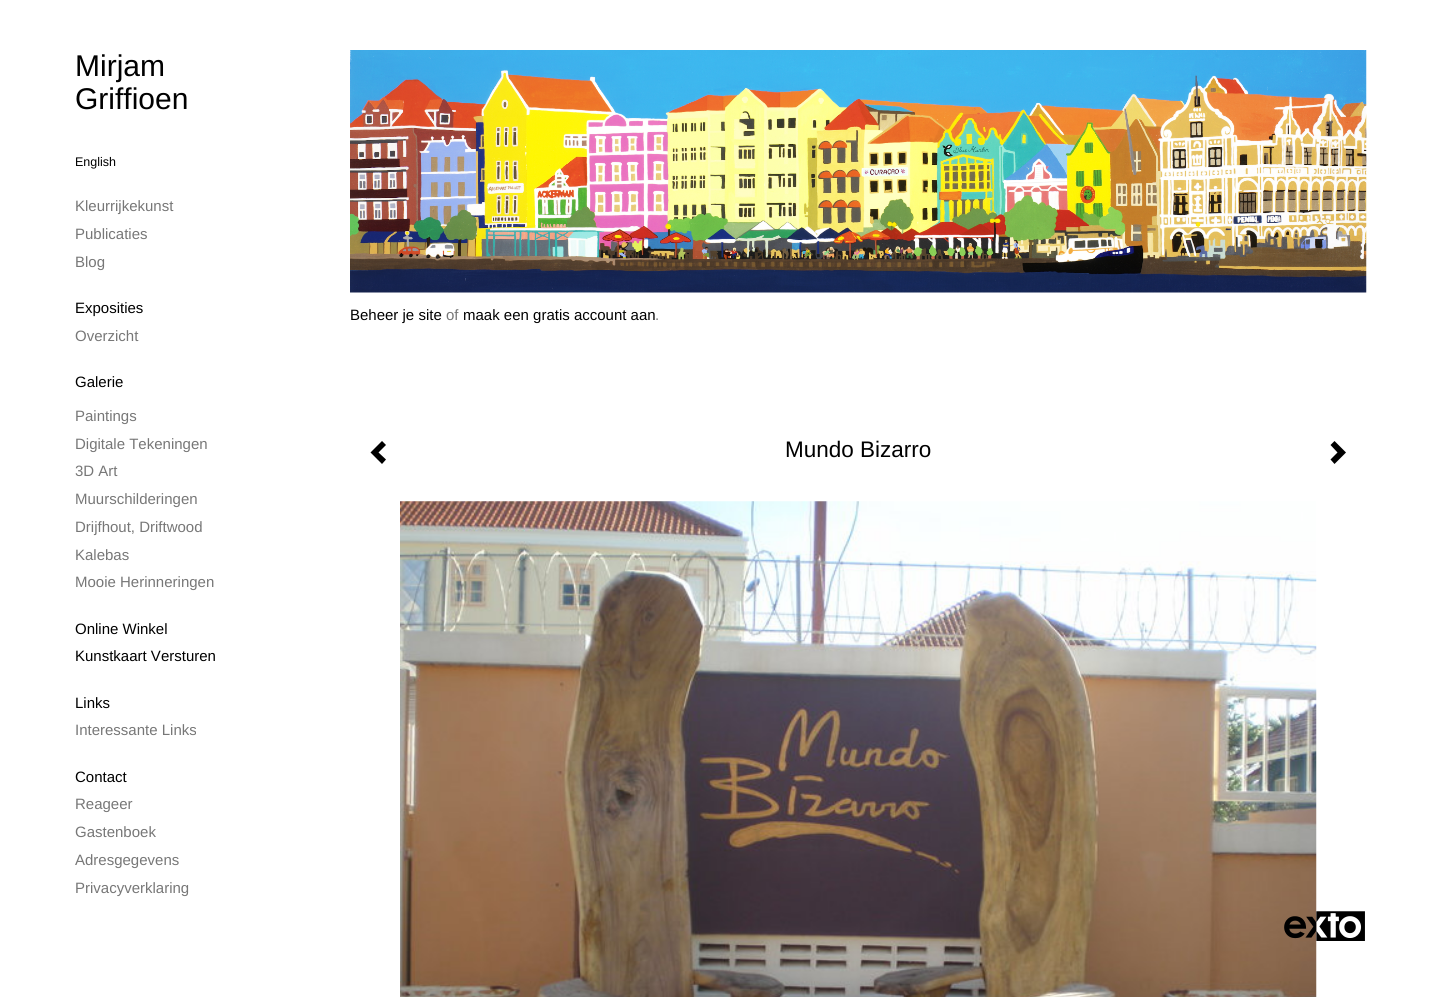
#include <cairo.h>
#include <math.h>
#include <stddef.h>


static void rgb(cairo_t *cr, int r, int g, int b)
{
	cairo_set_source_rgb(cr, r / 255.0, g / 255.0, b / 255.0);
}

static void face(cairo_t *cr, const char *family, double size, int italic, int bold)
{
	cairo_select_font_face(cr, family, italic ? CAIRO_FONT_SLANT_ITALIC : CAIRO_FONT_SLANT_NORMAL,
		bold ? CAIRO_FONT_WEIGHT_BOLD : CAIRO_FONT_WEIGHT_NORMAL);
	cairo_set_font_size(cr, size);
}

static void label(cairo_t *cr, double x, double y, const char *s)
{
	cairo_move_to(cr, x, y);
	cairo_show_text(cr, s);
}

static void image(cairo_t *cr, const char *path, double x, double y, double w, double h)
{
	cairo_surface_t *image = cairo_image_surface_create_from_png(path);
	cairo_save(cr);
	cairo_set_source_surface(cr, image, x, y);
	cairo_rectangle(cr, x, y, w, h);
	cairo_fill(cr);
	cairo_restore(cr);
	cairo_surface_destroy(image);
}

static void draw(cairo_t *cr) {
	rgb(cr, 255, 255, 255);
	cairo_paint(cr);
	face(cr, "Liberation Sans", 30, 0, 0);
	rgb(cr, 0, 0, 0);
	label(cr, 75, 76, "Mirjam");
	label(cr, 75, 109, "Griffioen");
	face(cr, "Liberation Sans", 12.5, 0, 0);
	label(cr, 75, 166, "English");
	face(cr, "Liberation Sans", 15, 0, 0);
	rgb(cr, 119, 119, 119);
	label(cr, 75, 211, "Kleurrijkekunst");
	label(cr, 75, 239, "Publicaties");
	label(cr, 75, 267, "Blog");
	rgb(cr, 0, 0, 0);
	label(cr, 75, 313, "Exposities");
	rgb(cr, 119, 119, 119);
	label(cr, 75, 341, "Overzicht");
	rgb(cr, 0, 0, 0);
	label(cr, 75, 387, "Galerie");
	rgb(cr, 119, 119, 119);
	label(cr, 75, 421, "Paintings");
	label(cr, 75, 449, "Digitale Tekeningen");
	label(cr, 75, 476, "3D Art");
	label(cr, 75, 504, "Muurschilderingen");
	label(cr, 75, 532, "Drijfhout, Driftwood");
	label(cr, 75, 560, "Kalebas");
	label(cr, 75, 587, "Mooie Herinneringen");
	rgb(cr, 0, 0, 0);
	label(cr, 75, 634, "Online Winkel");
	label(cr, 75, 661, "Kunstkaart Versturen");
	label(cr, 75, 708, "Links");
	rgb(cr, 119, 119, 119);
	label(cr, 75, 735, "Interessante Links");
	rgb(cr, 0, 0, 0);
	label(cr, 75, 782, "Contact");
	rgb(cr, 119, 119, 119);
	label(cr, 75, 809, "Reageer");
	label(cr, 75, 837, "Gastenboek");
	label(cr, 75, 865, "Adresgegevens");
	label(cr, 75, 893, "Privacyverklaring");
	rgb(cr, 0, 0, 0);
	cairo_new_path(cr);
	cairo_move_to(cr, 386, 445);
	cairo_line_to(cr, 378.5, 452.5);
	cairo_line_to(cr, 386, 459.5);
	cairo_line_to(cr, 382, 464);
	cairo_line_to(cr, 370.5, 452.5);
	cairo_line_to(cr, 382, 441);
	cairo_close_path(cr);
	cairo_fill(cr);
	face(cr, "Liberation Sans", 22.5, 0, 0);
	label(cr, 785, 457, "Mundo Bizarro");
	cairo_new_path(cr);
	cairo_move_to(cr, 1346, 452.5);
	cairo_line_to(cr, 1334.5, 464);
	cairo_line_to(cr, 1330.5, 459.5);
	cairo_line_to(cr, 1337.5, 452.5);
	cairo_line_to(cr, 1330.5, 445);
	cairo_line_to(cr, 1334.5, 441);
	cairo_close_path(cr);
	cairo_fill(cr);
	image(cr, "image0.png", 400, 501, 917, 496);
	image(cr, "image1.png", 350, 50, 1017, 243);
	face(cr, "Liberation Sans", 15, 0, 0);
	label(cr, 350, 320, "Beheer je site");
	rgb(cr, 119, 119, 119);
	label(cr, 446, 320, "of");
	rgb(cr, 0, 0, 0);
	label(cr, 463, 320, "maak een gratis account aan");
	rgb(cr, 119, 119, 119);
	label(cr, 655, 320, ".");
	image(cr, "image2.png", 1284, 911, 81, 30);
}

int main(void) {
	cairo_surface_t *surface = cairo_image_surface_create(CAIRO_FORMAT_RGB24, 1441, 997);
	cairo_t *cr = cairo_create(surface);
	cairo_font_options_t *options = cairo_font_options_create();
	cairo_font_options_set_hint_metrics(options, CAIRO_HINT_METRICS_OFF);
	cairo_font_options_set_hint_style(options, CAIRO_HINT_STYLE_NONE);
	cairo_set_font_options(cr, options);
	cairo_set_miter_limit(cr, 4);
	draw(cr);
	cairo_surface_write_to_png(surface, "render.png");
	cairo_font_options_destroy(options);
	cairo_destroy(cr);
	cairo_surface_destroy(surface);
	return 0;
}
